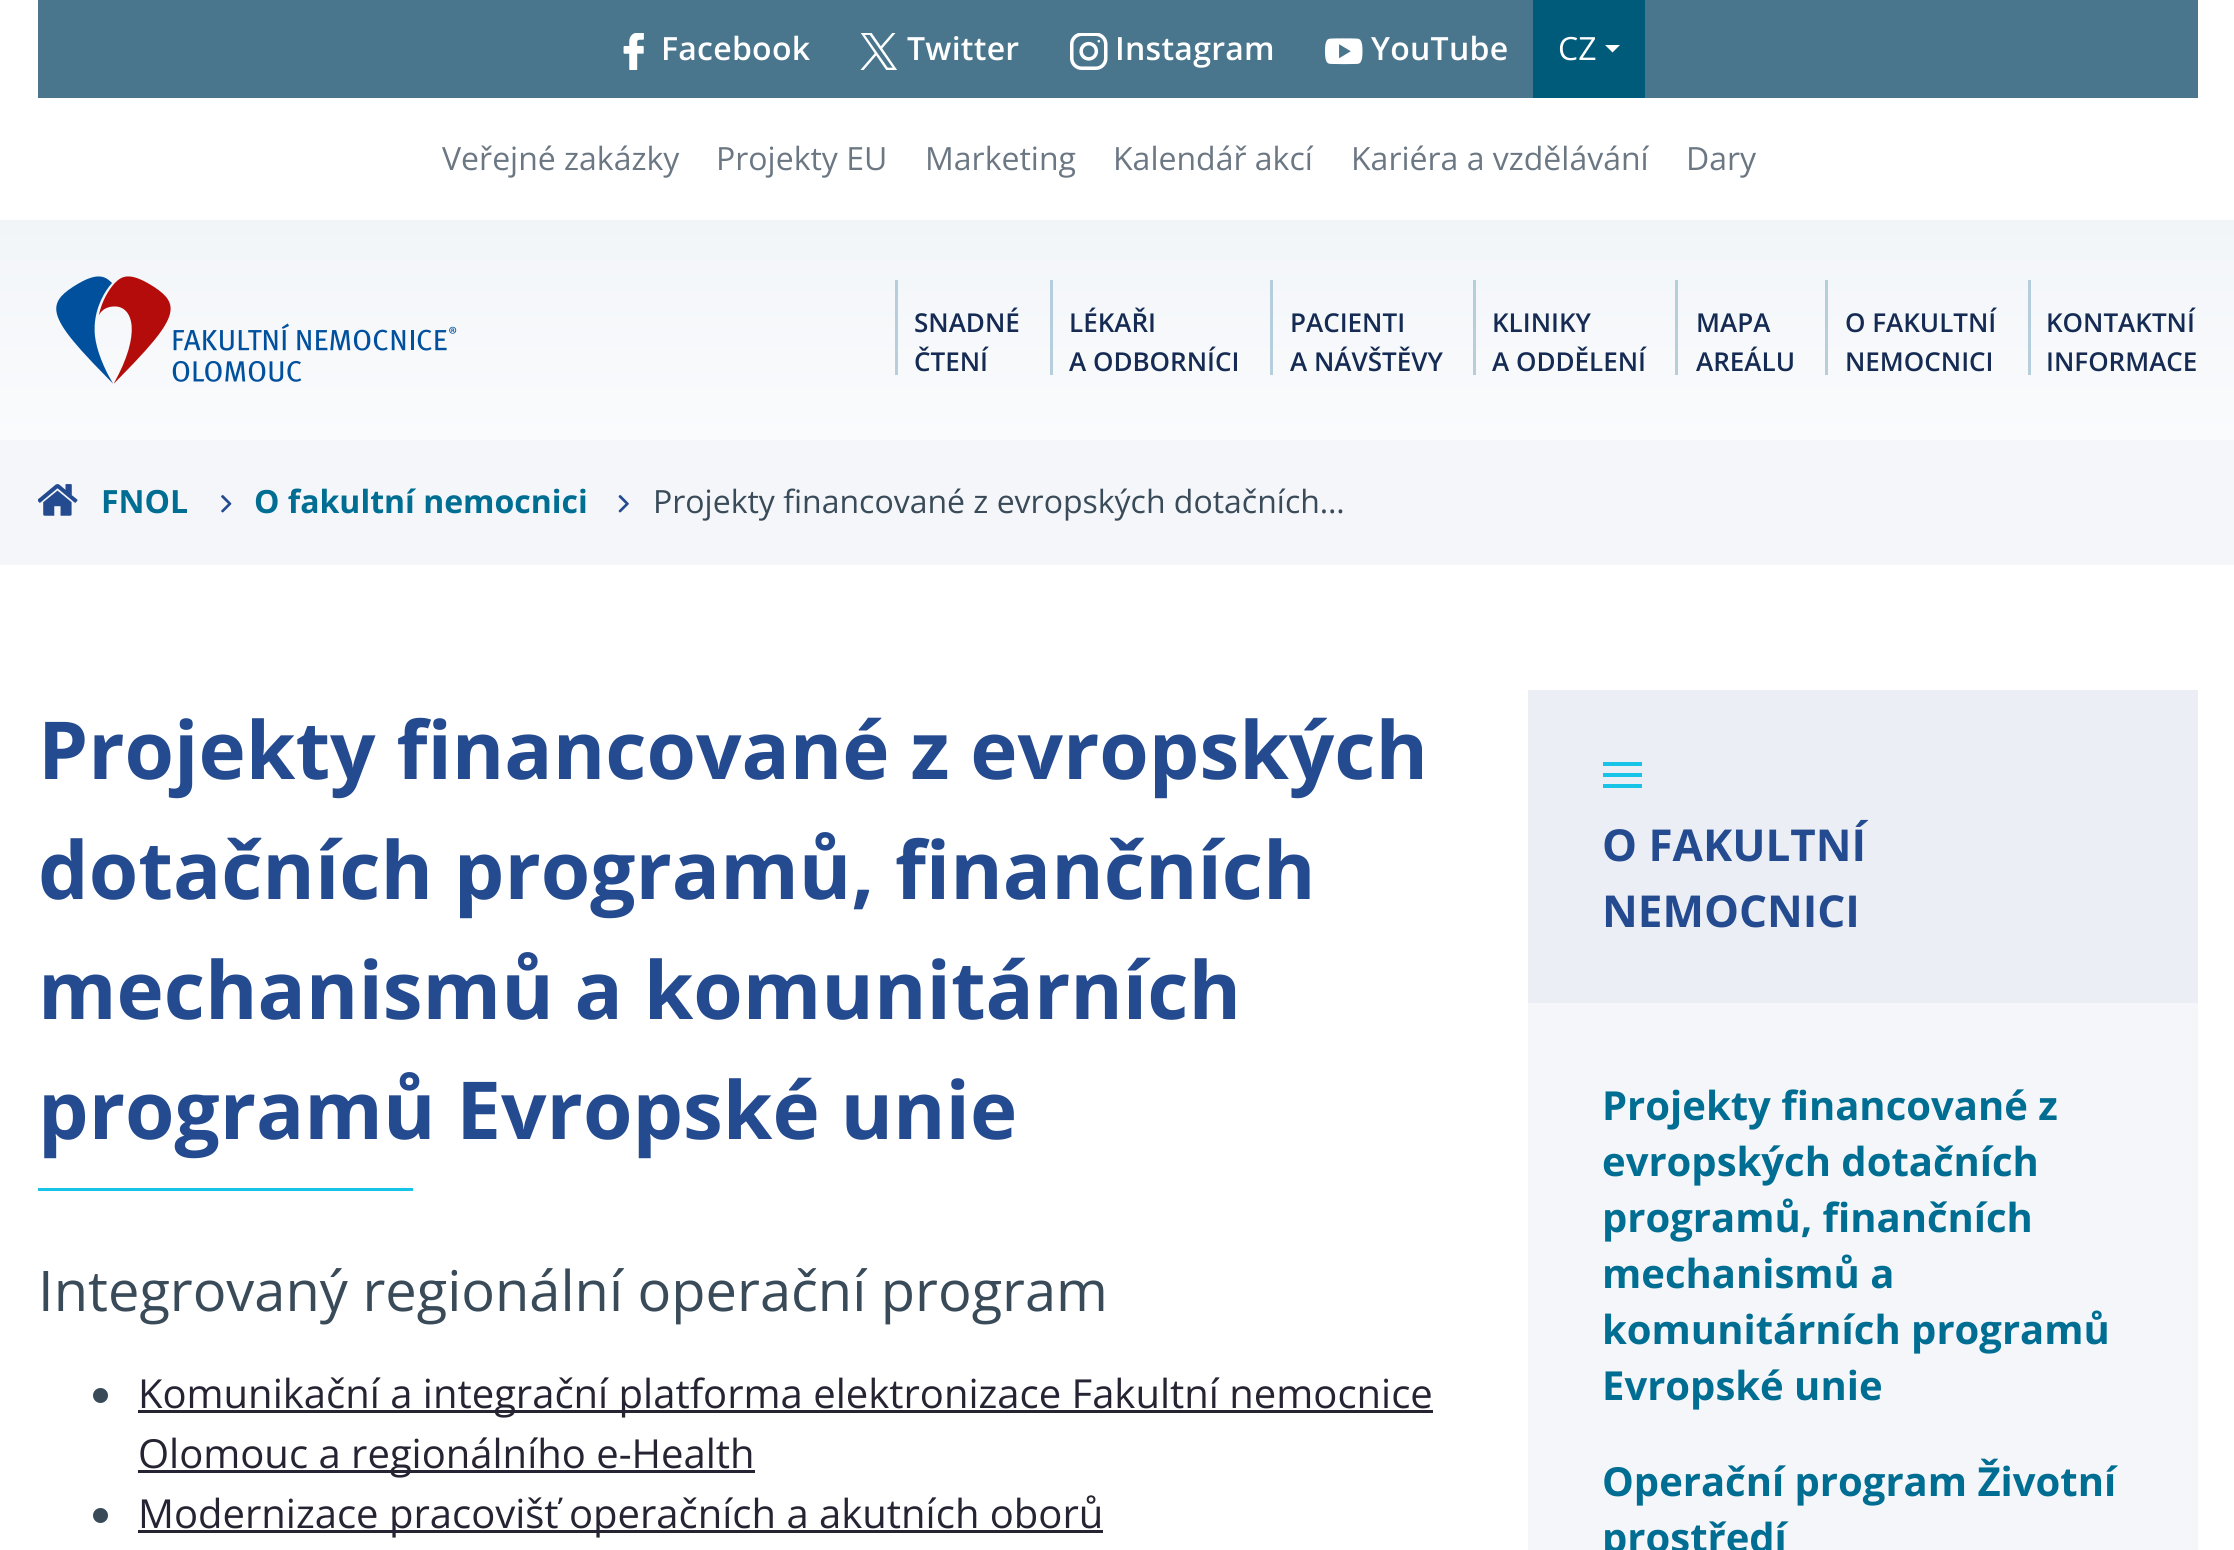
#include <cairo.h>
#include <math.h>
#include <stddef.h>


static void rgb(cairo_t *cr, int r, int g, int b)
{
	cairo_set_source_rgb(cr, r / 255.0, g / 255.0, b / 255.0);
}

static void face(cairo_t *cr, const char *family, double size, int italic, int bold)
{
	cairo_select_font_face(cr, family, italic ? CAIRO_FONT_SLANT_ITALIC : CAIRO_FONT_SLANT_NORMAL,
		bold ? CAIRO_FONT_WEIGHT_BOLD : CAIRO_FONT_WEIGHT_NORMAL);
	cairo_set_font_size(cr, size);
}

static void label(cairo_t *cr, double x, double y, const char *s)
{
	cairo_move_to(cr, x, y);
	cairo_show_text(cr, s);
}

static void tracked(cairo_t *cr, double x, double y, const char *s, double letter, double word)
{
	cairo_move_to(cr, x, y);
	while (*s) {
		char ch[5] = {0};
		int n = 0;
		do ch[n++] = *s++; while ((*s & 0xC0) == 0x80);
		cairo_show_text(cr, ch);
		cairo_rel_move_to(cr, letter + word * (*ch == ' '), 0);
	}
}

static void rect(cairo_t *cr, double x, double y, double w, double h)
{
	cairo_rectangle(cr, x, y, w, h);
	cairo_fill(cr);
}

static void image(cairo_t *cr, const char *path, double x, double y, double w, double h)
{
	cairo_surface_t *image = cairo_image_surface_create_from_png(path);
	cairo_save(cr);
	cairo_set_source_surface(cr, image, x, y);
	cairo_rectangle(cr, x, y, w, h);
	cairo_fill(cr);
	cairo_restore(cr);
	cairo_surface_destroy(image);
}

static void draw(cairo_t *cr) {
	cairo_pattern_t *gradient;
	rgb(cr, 255, 255, 255);
	cairo_paint(cr);
	rgb(cr, 73, 118, 141);
	rect(cr, 38, 0, 2160, 98);
	image(cr, "image0.png", 623, 33, 21, 37);
	face(cr, "Open Sans SemiBold", 32, 0, 0);
	rgb(cr, 255, 255, 255);
	tracked(cr, 661, 60, "Facebook", 0.25, 0);
	image(cr, "image1.png", 860, 33, 37, 37);
	tracked(cr, 907, 60, "Twitter", 0.25, 0);
	image(cr, "image2.png", 1070, 33, 38, 37);
	tracked(cr, 1115, 60, "Instagram", 0.25, 0);
	image(cr, "image3.png", 1325, 38, 38, 27);
	tracked(cr, 1371, 60, "YouTube", 0.25, 0);
	rgb(cr, 0, 90, 122);
	rect(cr, 1533, 0, 112, 98);
	face(cr, "Open Sans", 32, 0, 0);
	rgb(cr, 255, 255, 255);
	label(cr, 1558, 60, "CZ");
	cairo_new_path(cr);
	cairo_move_to(cr, 1605, 45);
	cairo_line_to(cr, 1620, 45);
	cairo_line_to(cr, 1612.5, 52.5);
	cairo_close_path(cr);
	cairo_fill(cr);
	rgb(cr, 107, 119, 131);
	label(cr, 442, 170, "Veřejné zakázky");
	label(cr, 716, 170, "Projekty EU");
	label(cr, 925, 170, "Marketing");
	label(cr, 1113, 170, "Kalendář akcí");
	label(cr, 1351, 170, "Kariéra a vzdělávání");
	label(cr, 1686, 170, "Dary");
	gradient = cairo_pattern_create_linear(1118, 220, 1118, 440);
	cairo_pattern_add_color_stop_rgba(gradient, 0, 0.949, 0.961, 0.973, 1);
	cairo_pattern_add_color_stop_rgba(gradient, 1, 0.98, 0.984, 0.992, 1);
	cairo_set_source(cr, gradient);
	cairo_pattern_destroy(gradient);
	rect(cr, 0, 220, 2234, 220);
	gradient = cairo_pattern_create_linear(1118, 220, 1118, 440);
	cairo_pattern_add_color_stop_rgba(gradient, 0, 0.706, 0.804, 0.859, 1);
	cairo_pattern_add_color_stop_rgba(gradient, 1, 0.722, 0.816, 0.867, 1);
	cairo_set_source(cr, gradient);
	cairo_pattern_destroy(gradient);
	rect(cr, 2028, 280, 3, 95);
	rect(cr, 1825, 280, 3, 95);
	rect(cr, 1675, 280, 3, 95);
	rect(cr, 1473, 280, 3, 95);
	rect(cr, 1270, 280, 3, 95);
	rect(cr, 1050, 280, 3, 95);
	rect(cr, 895, 280, 3, 95);
	image(cr, "image4.png", 56, 276, 401, 108);
	face(cr, "Open Sans SemiBold", 26, 0, 0);
	rgb(cr, 21, 43, 83);
	label(cr, 914, 332, "SNADNÉ");
	label(cr, 914, 371, "ČTENÍ");
	label(cr, 1069, 332, "LÉKAŘI");
	label(cr, 1069, 371, "A ODBORNÍCI");
	label(cr, 1290, 332, "PACIENTI");
	label(cr, 1290, 371, "A NÁVŠTĚVY");
	label(cr, 1492, 332, "KLINIKY");
	label(cr, 1492, 371, "A ODDĚLENÍ");
	label(cr, 1696, 332, "MAPA");
	label(cr, 1696, 371, "AREÁLU");
	label(cr, 1845, 332, "O FAKULTNÍ");
	label(cr, 1845, 371, "NEMOCNICI");
	label(cr, 2046, 332, "KONTAKTNÍ");
	label(cr, 2046, 371, "INFORMACE");
	rgb(cr, 244, 246, 249);
	rect(cr, 0, 440, 2234, 125);
	image(cr, "image5.png", 38, 484, 40, 32);
	face(cr, "Open Sans", 32, 0, 1);
	rgb(cr, 0, 109, 147);
	label(cr, 101, 513, "FNOL");
	image(cr, "image6.png", 221, 495, 11, 18);
	label(cr, 254, 513, "O fakultní nemocnici");
	image(cr, "image7.png", 618, 495, 11, 18);
	face(cr, "Open Sans", 32, 0, 0);
	rgb(cr, 57, 74, 89);
	label(cr, 653, 513, "Projekty financované z evropských dotačních…");
	face(cr, "Open Sans", 80, 0, 1);
	rgb(cr, 36, 74, 144);
	label(cr, 38, 779, "Projekty financované z evropských");
	label(cr, 38, 899, "dotačních programů, finančních");
	label(cr, 38, 1019, "mechanismů a komunitárních");
	label(cr, 38, 1139, "programů Evropské unie");
	rgb(cr, 23, 195, 230);
	rect(cr, 38, 1188, 375, 3);
	face(cr, "Open Sans", 56, 0, 0);
	rgb(cr, 57, 74, 89);
	label(cr, 38, 1311, "Integrovaný regionální operační program");
	cairo_new_path(cr);
	cairo_arc(cr, 100.5, 1395.5, 7.5, 0, 2 * M_PI);
	cairo_fill(cr);
	rgb(cr, 38, 36, 50);
	rect(cr, 138, 1410, 1295, 3);
	face(cr, "Open Sans", 40, 0, 0);
	label(cr, 138, 1408, "Komunikační a integrační platforma elektronizace Fakultní nemocnice");
	rect(cr, 138, 1470, 617, 3);
	label(cr, 138, 1468, "Olomouc a regionálního e-Health");
	rgb(cr, 57, 74, 89);
	cairo_new_path(cr);
	cairo_arc(cr, 100.5, 1515.5, 7.5, 0, 2 * M_PI);
	cairo_fill(cr);
	rgb(cr, 38, 36, 50);
	rect(cr, 138, 1530, 965, 3);
	label(cr, 138, 1528, "Modernizace pracovišť operačních a akutních oborů");
	rgb(cr, 244, 246, 249);
	rect(cr, 1528, 1003, 670, 547);
	rgb(cr, 235, 239, 245);
	rect(cr, 1528, 690, 670, 313);
	cairo_save(cr);
	cairo_rectangle(cr, 1603, 755, 40, 40);
	cairo_clip(cr);
	rgb(cr, 23, 195, 230);
	cairo_new_path(cr);
	cairo_move_to(cr, 1602, 788);
	cairo_line_to(cr, 1642, 788);
	cairo_line_to(cr, 1642, 784);
	cairo_line_to(cr, 1602, 784);
	cairo_close_path(cr);
	cairo_move_to(cr, 1602, 777);
	cairo_line_to(cr, 1642, 777);
	cairo_line_to(cr, 1642, 773);
	cairo_line_to(cr, 1602, 773);
	cairo_close_path(cr);
	cairo_move_to(cr, 1602, 762);
	cairo_line_to(cr, 1602, 766);
	cairo_line_to(cr, 1642, 766);
	cairo_line_to(cr, 1642, 762);
	cairo_close_path(cr);
	cairo_fill(cr);
	cairo_restore(cr);
	face(cr, "Open Sans", 44, 0, 1);
	rgb(cr, 36, 74, 144);
	label(cr, 1602, 861, "O FAKULTNÍ");
	label(cr, 1602, 927, "NEMOCNICI");
	face(cr, "Open Sans", 40, 0, 1);
	rgb(cr, 0, 109, 147);
	label(cr, 1602, 1120, "Projekty financované z");
	label(cr, 1602, 1176, "evropských dotačních");
	label(cr, 1602, 1232, "programů, finančních");
	label(cr, 1602, 1288, "mechanismů a");
	label(cr, 1602, 1344, "komunitárních programů");
	label(cr, 1602, 1400, "Evropské unie");
	label(cr, 1602, 1496, "Operační program Životní");
	label(cr, 1602, 1552, "prostředí");
}

int main(void) {
	cairo_surface_t *surface = cairo_image_surface_create(CAIRO_FORMAT_RGB24, 2234, 1550);
	cairo_t *cr = cairo_create(surface);
	cairo_font_options_t *options = cairo_font_options_create();
	cairo_font_options_set_hint_metrics(options, CAIRO_HINT_METRICS_OFF);
	cairo_font_options_set_hint_style(options, CAIRO_HINT_STYLE_NONE);
	cairo_set_font_options(cr, options);
	cairo_set_miter_limit(cr, 4);
	draw(cr);
	cairo_surface_write_to_png(surface, "render.png");
	cairo_font_options_destroy(options);
	cairo_destroy(cr);
	cairo_surface_destroy(surface);
	return 0;
}
